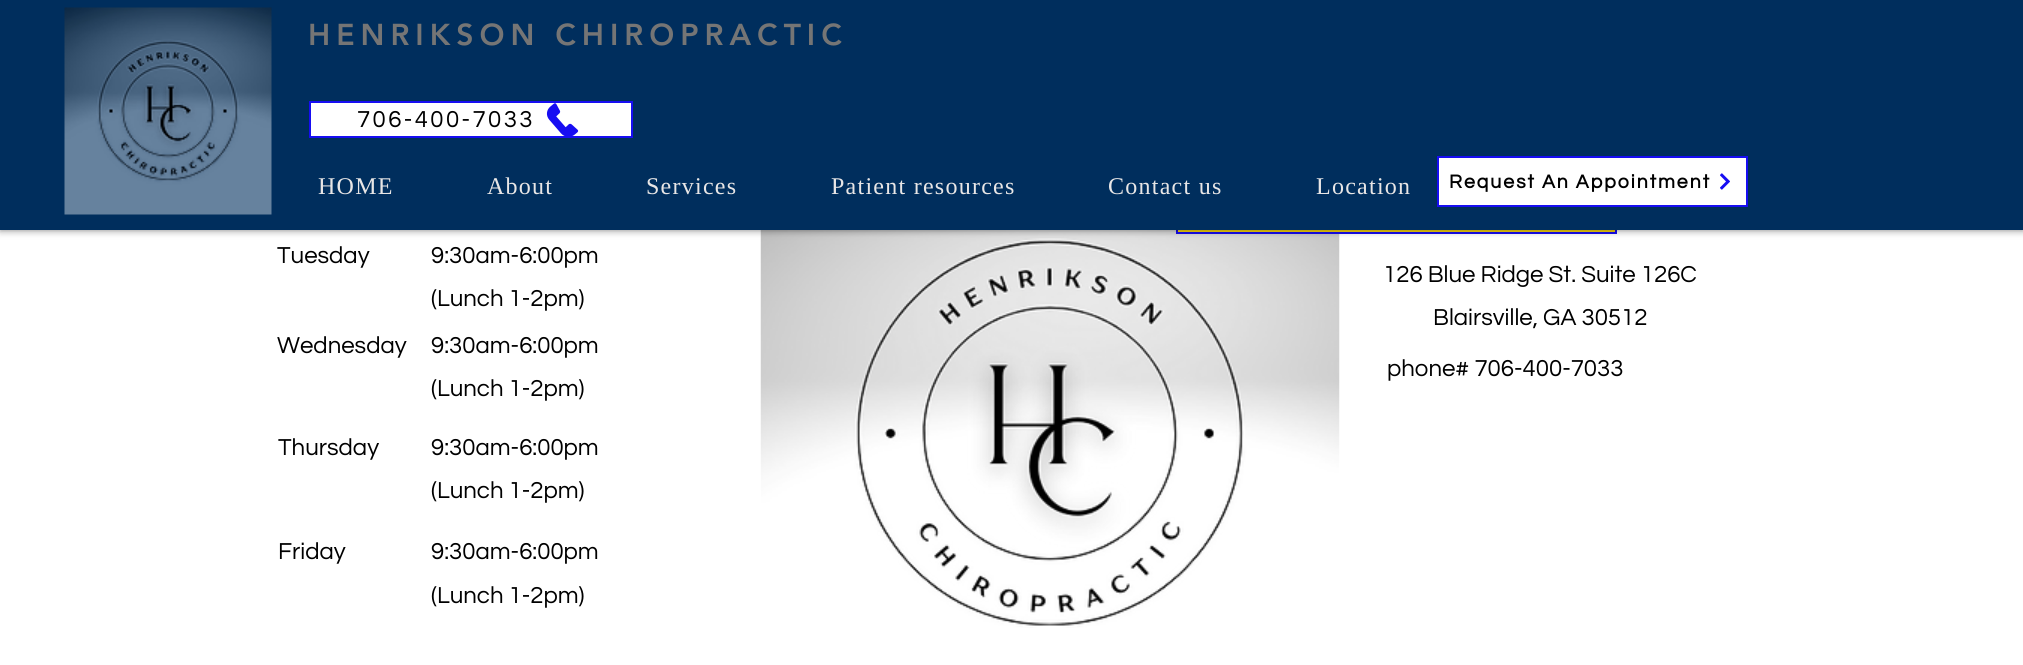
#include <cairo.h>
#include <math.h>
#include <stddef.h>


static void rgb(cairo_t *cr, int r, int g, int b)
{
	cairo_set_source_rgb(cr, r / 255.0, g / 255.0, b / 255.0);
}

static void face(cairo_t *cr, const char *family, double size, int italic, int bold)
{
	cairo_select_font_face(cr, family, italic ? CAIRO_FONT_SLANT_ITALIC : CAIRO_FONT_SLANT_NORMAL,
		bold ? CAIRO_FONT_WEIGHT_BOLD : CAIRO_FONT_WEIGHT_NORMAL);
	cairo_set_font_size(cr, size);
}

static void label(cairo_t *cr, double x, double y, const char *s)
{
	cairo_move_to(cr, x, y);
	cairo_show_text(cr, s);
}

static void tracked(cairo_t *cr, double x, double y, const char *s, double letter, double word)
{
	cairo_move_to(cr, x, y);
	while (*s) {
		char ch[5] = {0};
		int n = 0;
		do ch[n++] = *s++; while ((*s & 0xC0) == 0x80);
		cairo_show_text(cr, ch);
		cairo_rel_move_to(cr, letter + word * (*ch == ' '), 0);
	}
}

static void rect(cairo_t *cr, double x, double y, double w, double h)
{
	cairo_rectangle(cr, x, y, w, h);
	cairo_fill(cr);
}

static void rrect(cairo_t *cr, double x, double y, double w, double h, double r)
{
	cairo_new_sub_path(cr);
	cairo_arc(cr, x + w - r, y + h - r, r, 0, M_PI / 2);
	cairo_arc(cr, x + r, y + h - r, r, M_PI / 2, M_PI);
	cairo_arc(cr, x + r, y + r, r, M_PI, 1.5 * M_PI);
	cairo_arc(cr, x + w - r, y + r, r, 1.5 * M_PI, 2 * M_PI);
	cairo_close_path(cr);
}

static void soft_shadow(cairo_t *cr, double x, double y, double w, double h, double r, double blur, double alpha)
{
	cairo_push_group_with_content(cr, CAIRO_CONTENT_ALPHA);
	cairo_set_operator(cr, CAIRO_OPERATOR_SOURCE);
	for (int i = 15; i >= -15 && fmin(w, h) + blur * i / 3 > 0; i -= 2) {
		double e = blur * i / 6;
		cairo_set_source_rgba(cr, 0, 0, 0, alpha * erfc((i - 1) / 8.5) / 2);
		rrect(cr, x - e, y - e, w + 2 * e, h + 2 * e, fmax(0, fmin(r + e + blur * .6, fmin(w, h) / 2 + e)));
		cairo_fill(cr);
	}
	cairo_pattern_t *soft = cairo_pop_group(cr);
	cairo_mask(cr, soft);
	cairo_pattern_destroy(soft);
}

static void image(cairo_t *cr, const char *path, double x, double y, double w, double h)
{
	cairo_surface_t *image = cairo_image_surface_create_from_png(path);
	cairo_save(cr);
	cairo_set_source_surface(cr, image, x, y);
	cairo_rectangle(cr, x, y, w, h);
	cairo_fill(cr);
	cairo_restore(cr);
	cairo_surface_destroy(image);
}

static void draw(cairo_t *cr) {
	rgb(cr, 255, 255, 255);
	cairo_paint(cr);
	image(cr, "image3.png", 760, 230, 580, 398);
	rgb(cr, 253, 216, 13);
	rect(cr, 1178, 230, 437, 2);
	cairo_rectangle(cr, 1177, 160, 439, 73);
	rgb(cr, 23, 13, 242);
	cairo_stroke(cr);
	rgb(cr, 0, 0, 0);
	soft_shadow(cr, 0, 0, 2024, 230, 0, 4, 0.5);
	rgb(cr, 0, 46, 93);
	rect(cr, 0, 0, 2023, 230);
	image(cr, "image0.png", 64, 7, 208, 208);
	face(cr, "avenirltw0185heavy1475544 Black", 30, 0, 0);
	rgb(cr, 117, 117, 117);
	tracked(cr, 308, 45, "HENRIKSON CHIROPRACTIC", 6, 0);
	rgb(cr, 255, 255, 255);
	cairo_rectangle(cr, 310, 102, 322, 35);
	cairo_fill_preserve(cr);
	rgb(cr, 23, 13, 242);
	cairo_stroke(cr);
	face(cr, "Questrial", 24, 0, 0);
	rgb(cr, 0, 0, 0);
	tracked(cr, 357, 127, "706-400-7033", 2.4, 0);
	image(cr, "image1.png", 546, 103, 33, 33);
	face(cr, "Liberation Serif", 24, 0, 0);
	rgb(cr, 232, 230, 230);
	tracked(cr, 318, 194, "HOME", 1.25, 0);
	tracked(cr, 487, 194, "About", 1.25, 0);
	tracked(cr, 646, 194, "Services", 1.25, 0);
	tracked(cr, 831, 194, "Patient resources", 1.25, 0);
	tracked(cr, 1108, 194, "Contact us", 1.25, 0);
	tracked(cr, 1316, 194, "Location", 1.25, 0);
	rgb(cr, 255, 255, 255);
	cairo_rectangle(cr, 1438, 157, 309, 49);
	cairo_fill_preserve(cr);
	rgb(cr, 23, 13, 242);
	cairo_stroke(cr);
	face(cr, "Questrial", 19.5, 0, 1);
	rgb(cr, 0, 0, 0);
	tracked(cr, 1449, 188, "Request An Appointment", 1.95, 0);
	image(cr, "image2.png", 1720, 173, 10, 17);
	face(cr, "Questrial", 24, 0, 0);
	label(cr, 277, 263, "Tuesday");
	label(cr, 431, 263, "9:30am-6:00pm");
	label(cr, 431, 306, "(Lunch 1-2pm)");
	label(cr, 1383, 282, "126 Blue Ridge St. Suite 126C");
	label(cr, 1433, 325, "Blairsville, GA 30512");
	label(cr, 277, 353, "Wednesday");
	label(cr, 431, 353, "9:30am-6:00pm");
	label(cr, 431, 396, "(Lunch 1-2pm)");
	label(cr, 1387, 376, "phone# 706-400-7033");
	label(cr, 278, 455, "Thursday");
	label(cr, 431, 455, "9:30am-6:00pm");
	label(cr, 431, 498, "(Lunch 1-2pm)");
	label(cr, 278, 559, "Friday");
	label(cr, 431, 559, "9:30am-6:00pm");
	label(cr, 431, 603, "(Lunch 1-2pm)");
}

int main(void) {
	cairo_surface_t *surface = cairo_image_surface_create(CAIRO_FORMAT_RGB24, 2023, 665);
	cairo_t *cr = cairo_create(surface);
	cairo_font_options_t *options = cairo_font_options_create();
	cairo_font_options_set_hint_metrics(options, CAIRO_HINT_METRICS_OFF);
	cairo_font_options_set_hint_style(options, CAIRO_HINT_STYLE_NONE);
	cairo_set_font_options(cr, options);
	cairo_set_miter_limit(cr, 4);
	draw(cr);
	cairo_surface_write_to_png(surface, "render.png");
	cairo_font_options_destroy(options);
	cairo_destroy(cr);
	cairo_surface_destroy(surface);
	return 0;
}
